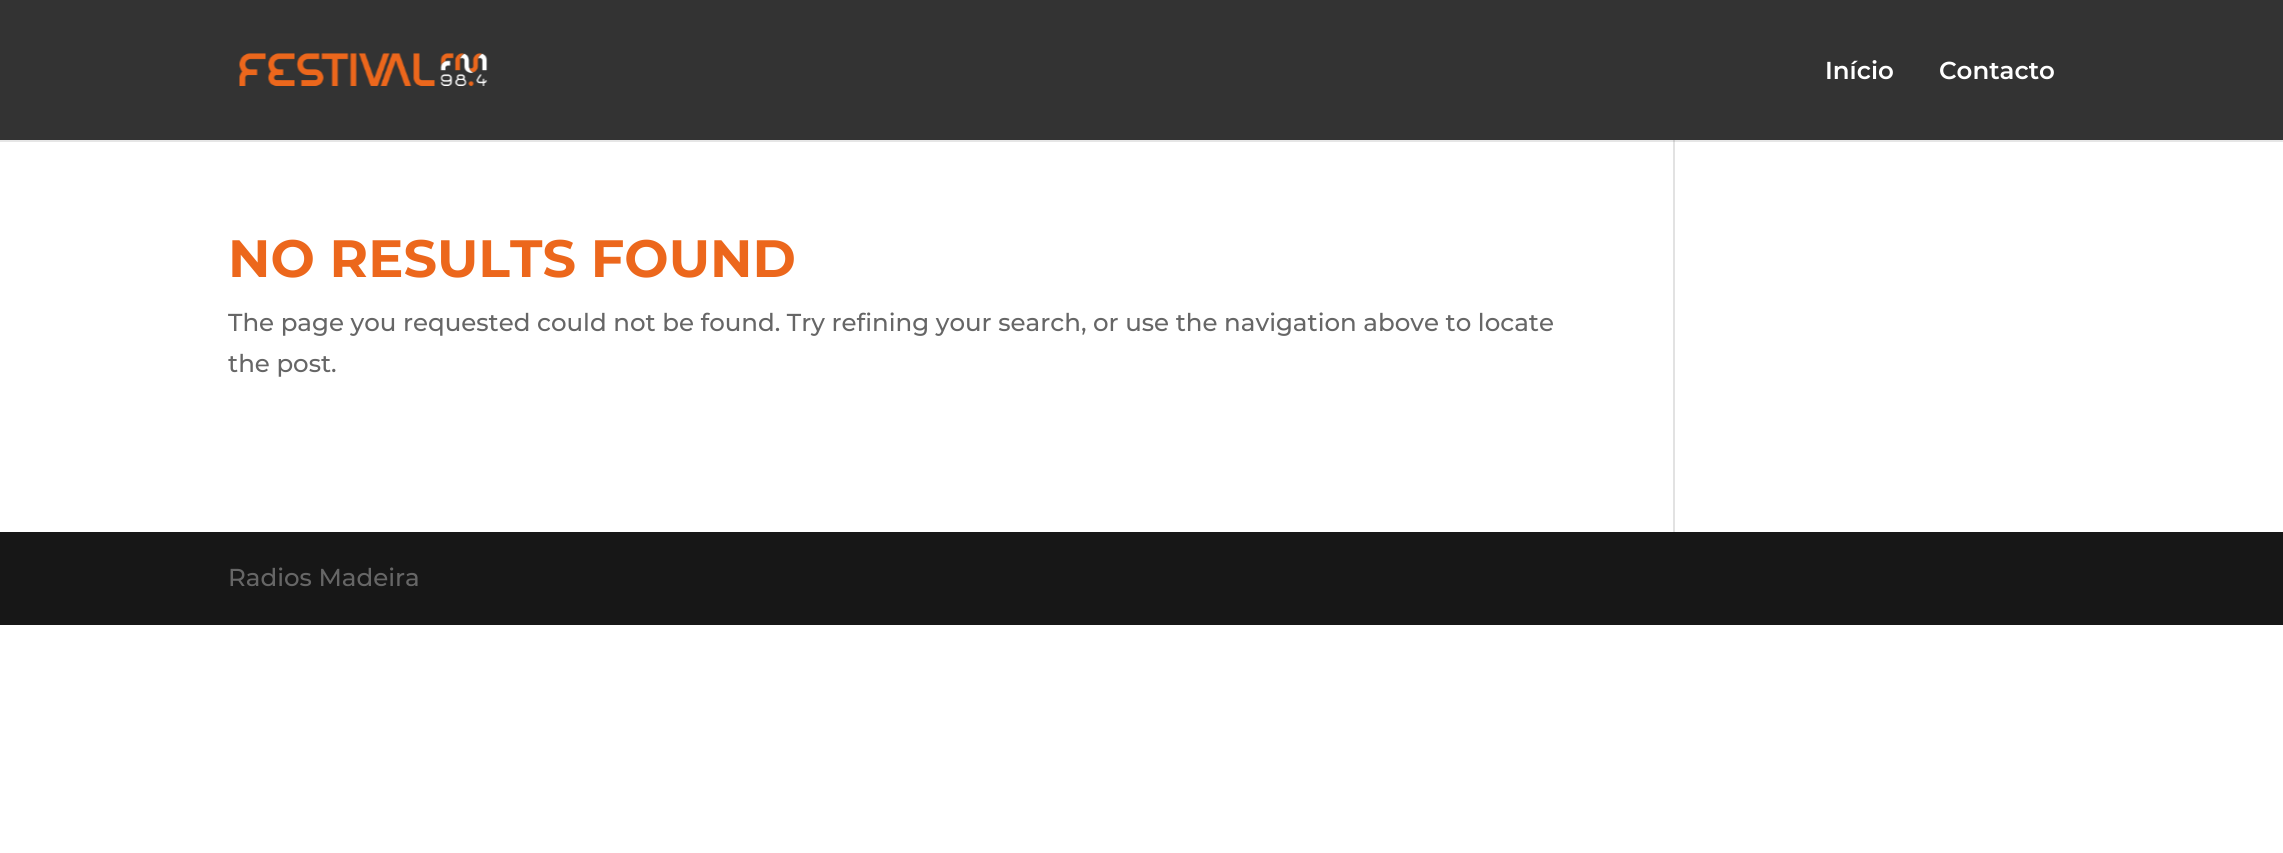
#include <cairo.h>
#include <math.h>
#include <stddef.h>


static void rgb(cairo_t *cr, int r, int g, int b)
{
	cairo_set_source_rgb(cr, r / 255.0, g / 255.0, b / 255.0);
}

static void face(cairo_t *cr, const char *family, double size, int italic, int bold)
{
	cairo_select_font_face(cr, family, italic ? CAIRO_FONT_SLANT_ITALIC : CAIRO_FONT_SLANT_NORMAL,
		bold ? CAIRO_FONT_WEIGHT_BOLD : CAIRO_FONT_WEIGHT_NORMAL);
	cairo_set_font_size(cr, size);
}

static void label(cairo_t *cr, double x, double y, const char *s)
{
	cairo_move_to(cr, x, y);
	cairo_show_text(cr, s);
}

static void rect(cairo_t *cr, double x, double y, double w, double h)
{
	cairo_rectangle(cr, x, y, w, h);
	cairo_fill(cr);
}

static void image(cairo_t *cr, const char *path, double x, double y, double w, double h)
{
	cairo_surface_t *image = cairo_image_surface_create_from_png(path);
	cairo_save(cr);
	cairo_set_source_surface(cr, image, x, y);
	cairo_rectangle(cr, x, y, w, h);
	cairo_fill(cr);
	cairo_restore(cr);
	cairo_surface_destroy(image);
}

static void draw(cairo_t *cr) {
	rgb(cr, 255, 255, 255);
	cairo_paint(cr);
	rgb(cr, 226, 226, 226);
	rect(cr, 1673, 140, 2, 392);
	cairo_set_source_rgba(cr, 0, 0, 0, 0.1);
	cairo_new_path(cr);
	cairo_move_to(cr, 0, 140);
	cairo_line_to(cr, 0, 142);
	cairo_line_to(cr, 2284, 142);
	cairo_line_to(cr, 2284, 2);
	cairo_line_to(cr, 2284, 140);
	cairo_close_path(cr);
	cairo_fill(cr);
	rgb(cr, 51, 51, 51);
	rect(cr, 0, 0, 2283, 140);
	image(cr, "image0.png", 239, 53, 249, 33);
	face(cr, "Montserrat SemiBold", 24.5, 0, 0);
	rgb(cr, 255, 255, 255);
	label(cr, 1825, 79, "Início");
	label(cr, 1939, 79, "Contacto");
	face(cr, "Montserrat", 52.5, 0, 1);
	rgb(cr, 236, 103, 28);
	label(cr, 228, 277, "NO RESULTS FOUND");
	face(cr, "Montserrat Medium", 24.5, 0, 0);
	rgb(cr, 102, 102, 102);
	label(cr, 228, 331, "The page you requested could not be found. Try refining your search, or use the navigation above to locate");
	label(cr, 228, 372, "the post.");
	rgb(cr, 23, 23, 23);
	rect(cr, 0, 532, 2283, 93);
	rgb(cr, 102, 102, 102);
	label(cr, 228, 586, "Radios Madeira");
}

int main(void) {
	cairo_surface_t *surface = cairo_image_surface_create(CAIRO_FORMAT_RGB24, 2283, 853);
	cairo_t *cr = cairo_create(surface);
	cairo_font_options_t *options = cairo_font_options_create();
	cairo_font_options_set_hint_metrics(options, CAIRO_HINT_METRICS_OFF);
	cairo_font_options_set_hint_style(options, CAIRO_HINT_STYLE_NONE);
	cairo_set_font_options(cr, options);
	cairo_set_miter_limit(cr, 4);
	draw(cr);
	cairo_surface_write_to_png(surface, "render.png");
	cairo_font_options_destroy(options);
	cairo_destroy(cr);
	cairo_surface_destroy(surface);
	return 0;
}
